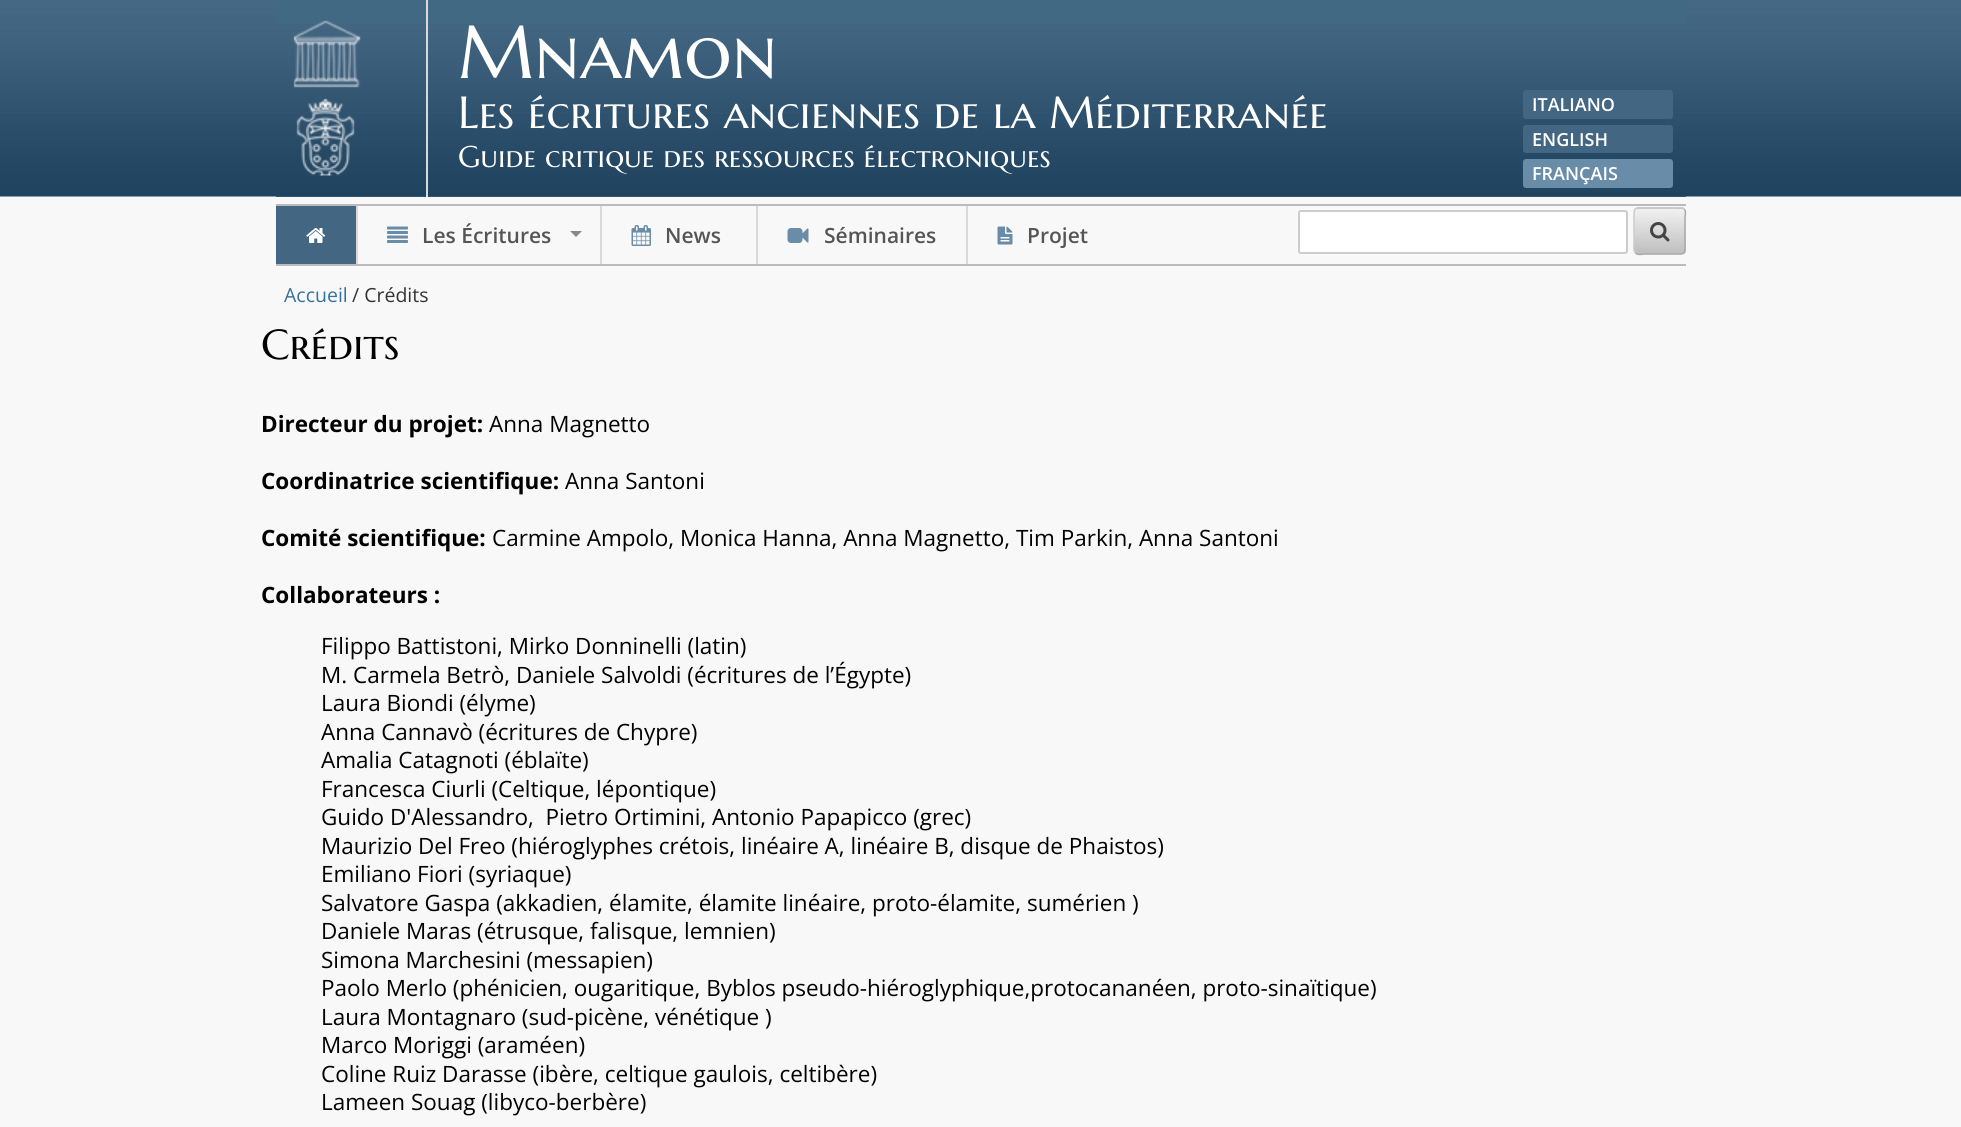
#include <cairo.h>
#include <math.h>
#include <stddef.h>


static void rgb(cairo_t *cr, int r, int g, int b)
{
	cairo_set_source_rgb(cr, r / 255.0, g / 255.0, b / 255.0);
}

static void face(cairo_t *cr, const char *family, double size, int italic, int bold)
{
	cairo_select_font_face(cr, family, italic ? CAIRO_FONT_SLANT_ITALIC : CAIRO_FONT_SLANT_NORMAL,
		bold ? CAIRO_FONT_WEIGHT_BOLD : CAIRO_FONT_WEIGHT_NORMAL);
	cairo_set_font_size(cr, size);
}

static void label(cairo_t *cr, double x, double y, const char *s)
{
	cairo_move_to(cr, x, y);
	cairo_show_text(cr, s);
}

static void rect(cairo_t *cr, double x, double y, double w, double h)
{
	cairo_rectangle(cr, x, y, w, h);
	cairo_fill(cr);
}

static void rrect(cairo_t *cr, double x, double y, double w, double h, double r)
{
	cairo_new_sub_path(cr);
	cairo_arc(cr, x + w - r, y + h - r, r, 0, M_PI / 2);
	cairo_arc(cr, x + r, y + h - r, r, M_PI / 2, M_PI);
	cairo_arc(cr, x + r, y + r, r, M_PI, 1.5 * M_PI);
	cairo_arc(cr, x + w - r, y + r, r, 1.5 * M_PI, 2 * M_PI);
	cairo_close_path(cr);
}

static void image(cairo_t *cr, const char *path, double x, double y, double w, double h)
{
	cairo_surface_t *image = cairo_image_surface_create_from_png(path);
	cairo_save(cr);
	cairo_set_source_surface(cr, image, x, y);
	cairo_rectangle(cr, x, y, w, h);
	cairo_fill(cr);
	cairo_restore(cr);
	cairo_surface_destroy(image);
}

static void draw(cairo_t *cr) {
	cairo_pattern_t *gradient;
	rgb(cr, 248, 248, 248);
	cairo_paint(cr);
	image(cr, "image0.png", 0, 0, 1961, 197);
	rgb(cr, 65, 105, 131);
	rect(cr, 276, 0, 1410, 197);
	image(cr, "image1.png", 276, 24, 1410, 173);
	rgb(cr, 217, 217, 217);
	rect(cr, 426, 0, 2, 197);
	image(cr, "image2.png", 293, 20, 68, 156);
	face(cr, "Marcellus SC", 75, 0, 0);
	rgb(cr, 255, 255, 255);
	label(cr, 458, 78, "Mnamon");
	face(cr, "Marcellus SC", 45, 0, 0);
	label(cr, 458, 128, "Les écritures anciennes de la Méditerranée");
	face(cr, "Marcellus SC", 30, 0, 0);
	label(cr, 458, 167, "Guide critique des ressources électroniques");
	rgb(cr, 67, 102, 130);
	rrect(cr, 1523, 90, 150, 29, 3);
	cairo_fill(cr);
	face(cr, "Open Sans SemiBold", 18, 0, 0);
	rgb(cr, 255, 255, 255);
	label(cr, 1532, 111, "ITALIANO");
	rgb(cr, 67, 102, 130);
	rrect(cr, 1523, 125, 150, 28, 3);
	cairo_fill(cr);
	rgb(cr, 255, 255, 255);
	label(cr, 1532, 146, "ENGLISH");
	rgb(cr, 105, 140, 168);
	rrect(cr, 1523, 159, 150, 29, 3);
	cairo_fill(cr);
	rgb(cr, 255, 255, 255);
	label(cr, 1532, 180, "FRANÇAIS");
	rgb(cr, 187, 187, 187);
	rect(cr, 276, 204, 1410, 2);
	rect(cr, 276, 264, 1410, 2);
	rgb(cr, 67, 102, 130);
	rect(cr, 276, 206, 80, 58);
	image(cr, "image3.png", 306, 228, 20, 15);
	rgb(cr, 217, 217, 217);
	rect(cr, 356, 206, 2, 58);
	image(cr, "image4.png", 387, 226, 21, 17);
	face(cr, "Open Sans SemiBold", 21, 0, 0);
	rgb(cr, 85, 85, 85);
	label(cr, 422, 243, "Les Écritures");
	rgb(cr, 136, 136, 136);
	cairo_new_path(cr);
	cairo_move_to(cr, 570, 231);
	cairo_line_to(cr, 582, 231);
	cairo_line_to(cr, 576, 237);
	cairo_close_path(cr);
	cairo_fill(cr);
	rgb(cr, 217, 217, 217);
	rect(cr, 600, 206, 2, 58);
	image(cr, "image5.png", 631, 225, 20, 21);
	rgb(cr, 85, 85, 85);
	label(cr, 665, 243, "News");
	rgb(cr, 217, 217, 217);
	rect(cr, 756, 206, 2, 58);
	image(cr, "image6.png", 787, 228, 22, 15);
	rgb(cr, 85, 85, 85);
	label(cr, 824, 243, "Séminaires");
	rgb(cr, 217, 217, 217);
	rect(cr, 966, 206, 2, 58);
	image(cr, "image7.png", 997, 226, 16, 19);
	rgb(cr, 85, 85, 85);
	label(cr, 1027, 243, "Projet");
	rgb(cr, 255, 255, 255);
	rrect(cr, 1299, 211, 328, 42, 2);
	cairo_fill_preserve(cr);
	rgb(cr, 204, 204, 204);
	cairo_stroke(cr);
	rgb(cr, 238, 238, 238);
	rrect(cr, 1634, 207, 52, 48, 5);
	cairo_fill(cr);
	cairo_save(cr);
	rrect(cr, 1634, 207, 52, 48, 5);
	cairo_clip(cr);
	gradient = cairo_pattern_create_linear(1660, 164, 1660, 209);
	cairo_pattern_add_color_stop_rgba(gradient, 0, 1, 1, 1, 0.2);
	cairo_pattern_add_color_stop_rgba(gradient, 1, 0, 0, 0, 0.2);
	cairo_set_source(cr, gradient);
	cairo_pattern_destroy(gradient);
	rect(cr, 1634, 207, 52, 2);
	gradient = cairo_pattern_create_linear(1660, 209, 1660, 254);
	cairo_pattern_add_color_stop_rgba(gradient, 0, 1, 1, 1, 0.2);
	cairo_pattern_add_color_stop_rgba(gradient, 1, 0, 0, 0, 0.2);
	cairo_set_source(cr, gradient);
	cairo_pattern_destroy(gradient);
	rect(cr, 1634, 209, 52, 45);
	cairo_restore(cr);
	cairo_new_path(cr);
	cairo_move_to(cr, 1684, 209);
	cairo_curve_to(cr, 1686.5, 211, 1685, 216, 1685, 218);
	cairo_line_to(cr, 1685, 244);
	cairo_curve_to(cr, 1685, 255, 1685.5, 254, 1674, 254);
	cairo_line_to(cr, 1645, 254);
	cairo_curve_to(cr, 1643.5, 254, 1637.5, 255.5, 1635.5, 253);
	rgb(cr, 170, 170, 170);
	cairo_set_line_width(cr, 1.5);
	cairo_stroke(cr);
	cairo_new_path(cr);
	cairo_move_to(cr, 1635.5, 253);
	cairo_curve_to(cr, 1633, 251, 1634, 246, 1634, 244);
	cairo_line_to(cr, 1634, 218);
	cairo_curve_to(cr, 1634, 207, 1634, 208, 1645, 208);
	cairo_line_to(cr, 1674, 208);
	cairo_curve_to(cr, 1676, 208, 1682, 206.5, 1684, 209);
	rgb(cr, 204, 204, 204);
	cairo_stroke(cr);
	image(cr, "image8.png", 1650, 222, 20, 20);
	face(cr, "Open Sans", 19.5, 0, 0);
	rgb(cr, 54, 113, 159);
	label(cr, 284, 302, "Accueil");
	rgb(cr, 51, 51, 51);
	label(cr, 352, 302, "/ Crédits");
	face(cr, "Marcellus SC", 42, 0, 0);
	rgb(cr, 0, 0, 0);
	label(cr, 261, 359, "Crédits");
	face(cr, "Open Sans", 22.5, 0, 1);
	label(cr, 261, 432, "Directeur du projet:");
	face(cr, "Open Sans", 22.5, 0, 0);
	label(cr, 489, 432, "Anna Magnetto");
	face(cr, "Open Sans", 22.5, 0, 1);
	label(cr, 261, 489, "Coordinatrice scientifique:");
	face(cr, "Open Sans", 22.5, 0, 0);
	label(cr, 565, 489, "Anna Santoni");
	face(cr, "Open Sans", 22.5, 0, 1);
	label(cr, 261, 546, "Comité scientifique:");
	face(cr, "Open Sans", 22.5, 0, 0);
	label(cr, 492, 546, "Carmine Ampolo, Monica Hanna, Anna Magnetto, Tim Parkin, Anna Santoni");
	face(cr, "Open Sans", 22.5, 0, 1);
	label(cr, 261, 603, "Collaborateurs :");
	face(cr, "Open Sans", 22.5, 0, 0);
	label(cr, 321, 654, "Filippo Battistoni, Mirko Donninelli (latin)");
	label(cr, 321, 683, "M. Carmela Betrò, Daniele Salvoldi (écritures de l’Égypte)");
	label(cr, 321, 711, "Laura Biondi (élyme)");
	label(cr, 321, 740, "Anna Cannavò (écritures de Chypre)");
	label(cr, 321, 768, "Amalia Catagnoti (éblaïte)");
	label(cr, 321, 797, "Francesca Ciurli (Celtique, lépontique)");
	label(cr, 321, 825, "Guido D'Alessandro,  Pietro Ortimini, Antonio Papapicco (grec)");
	label(cr, 321, 854, "Maurizio Del Freo (hiéroglyphes crétois, linéaire A, linéaire B, disque de Phaistos)");
	label(cr, 321, 882, "Emiliano Fiori (syriaque)");
	label(cr, 321, 911, "Salvatore Gaspa (akkadien, élamite, élamite linéaire, proto-élamite, sumérien )");
	label(cr, 321, 939, "Daniele Maras (étrusque, falisque, lemnien)");
	label(cr, 321, 968, "Simona Marchesini (messapien)");
	label(cr, 321, 996, "Paolo Merlo (phénicien, ougaritique, Byblos pseudo-hiéroglyphique,protocananéen, proto-sinaïtique)");
	label(cr, 321, 1025, "Laura Montagnaro (sud-picène, vénétique )");
	label(cr, 321, 1053, "Marco Moriggi (araméen)");
	label(cr, 321, 1082, "Coline Ruiz Darasse (ibère, celtique gaulois, celtibère)");
	label(cr, 321, 1110, "Lameen Souag (libyco-berbère)");
}

int main(void) {
	cairo_surface_t *surface = cairo_image_surface_create(CAIRO_FORMAT_RGB24, 1961, 1127);
	cairo_t *cr = cairo_create(surface);
	cairo_font_options_t *options = cairo_font_options_create();
	cairo_font_options_set_hint_metrics(options, CAIRO_HINT_METRICS_OFF);
	cairo_font_options_set_hint_style(options, CAIRO_HINT_STYLE_NONE);
	cairo_set_font_options(cr, options);
	cairo_set_miter_limit(cr, 4);
	draw(cr);
	cairo_surface_write_to_png(surface, "render.png");
	cairo_font_options_destroy(options);
	cairo_destroy(cr);
	cairo_surface_destroy(surface);
	return 0;
}
